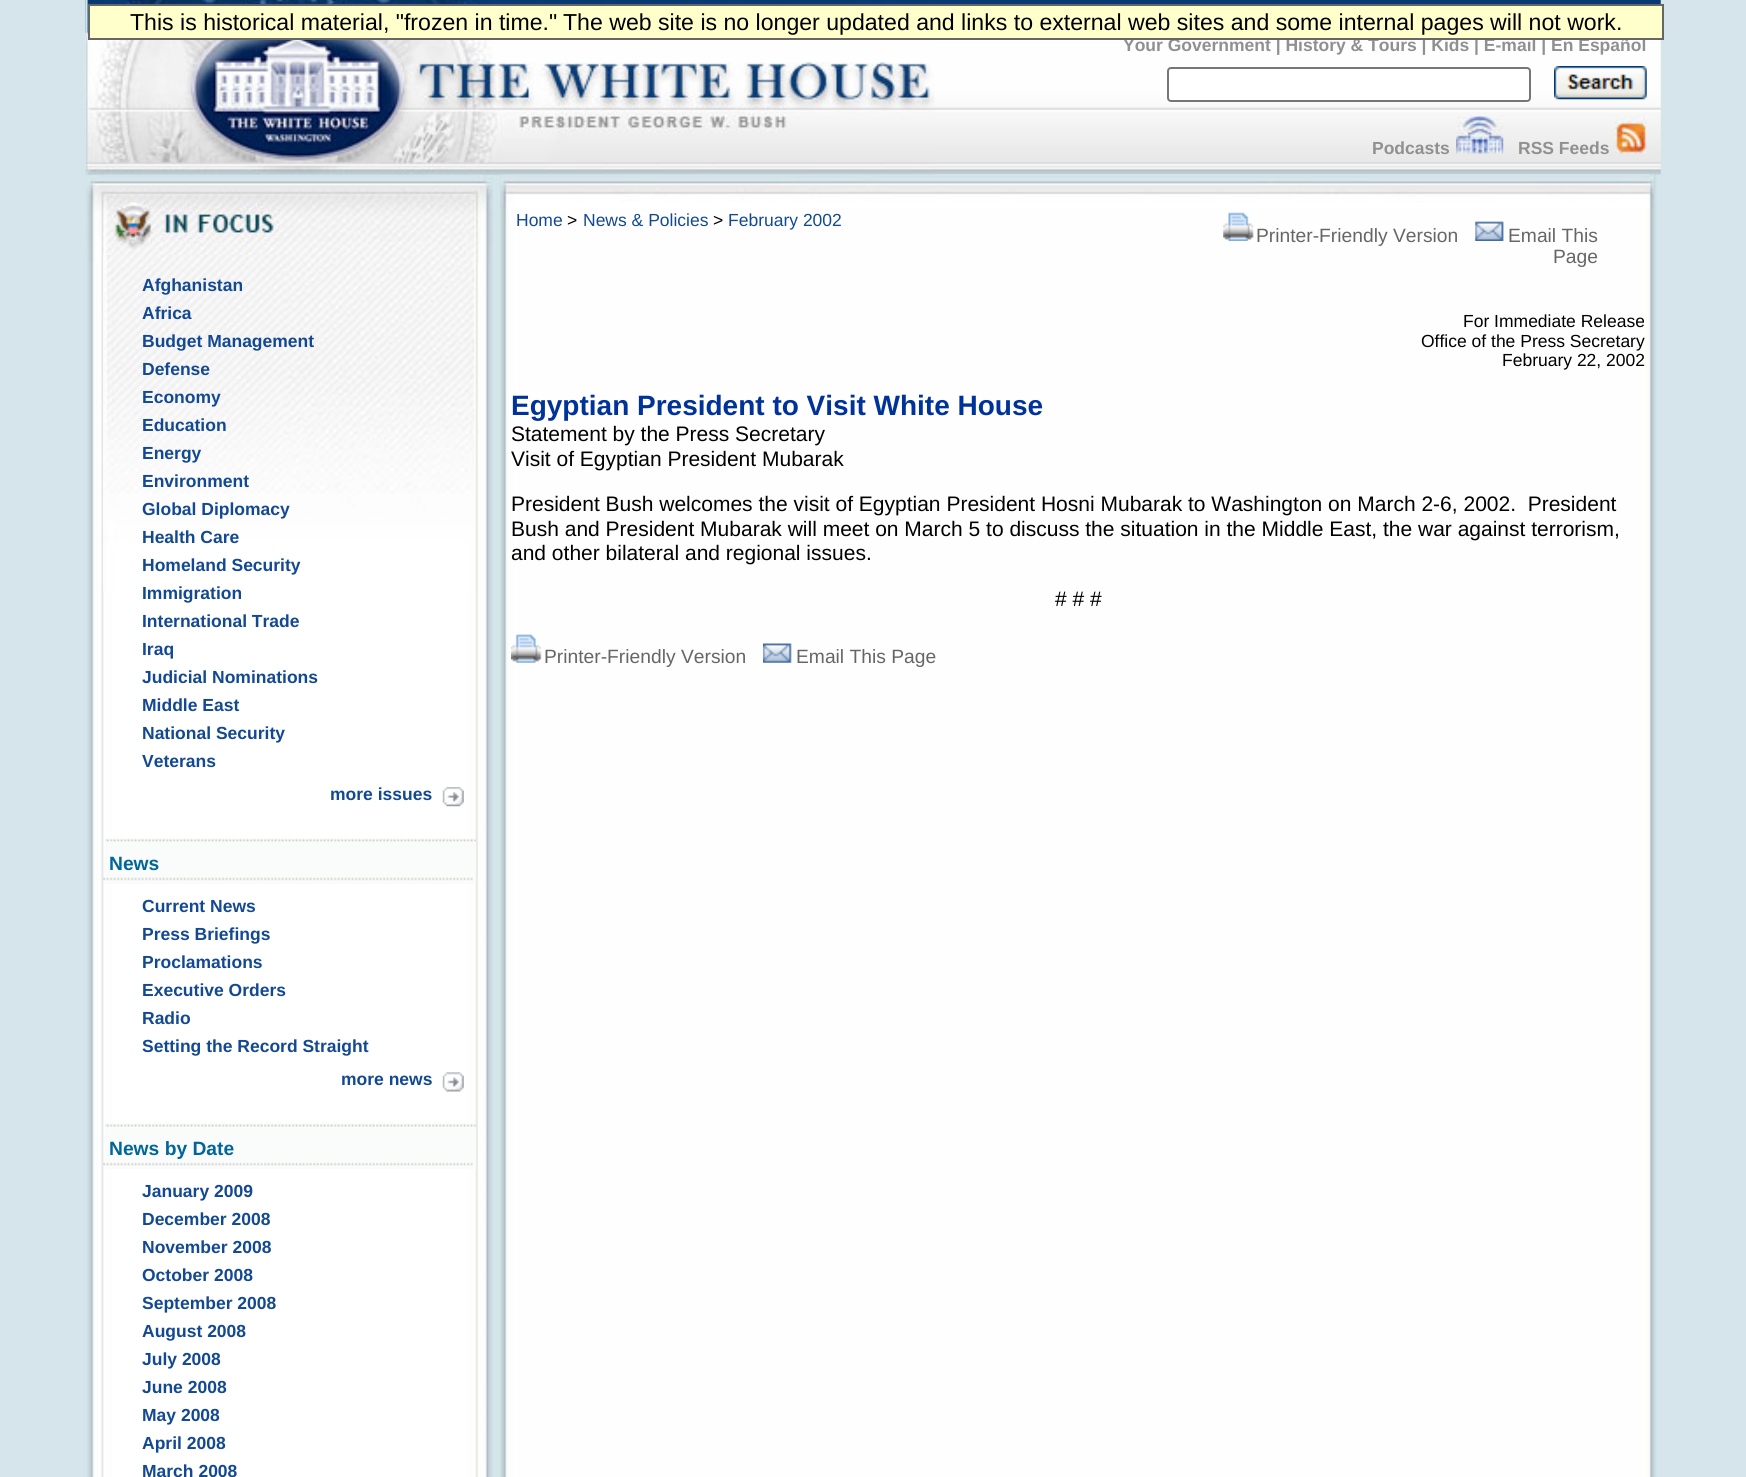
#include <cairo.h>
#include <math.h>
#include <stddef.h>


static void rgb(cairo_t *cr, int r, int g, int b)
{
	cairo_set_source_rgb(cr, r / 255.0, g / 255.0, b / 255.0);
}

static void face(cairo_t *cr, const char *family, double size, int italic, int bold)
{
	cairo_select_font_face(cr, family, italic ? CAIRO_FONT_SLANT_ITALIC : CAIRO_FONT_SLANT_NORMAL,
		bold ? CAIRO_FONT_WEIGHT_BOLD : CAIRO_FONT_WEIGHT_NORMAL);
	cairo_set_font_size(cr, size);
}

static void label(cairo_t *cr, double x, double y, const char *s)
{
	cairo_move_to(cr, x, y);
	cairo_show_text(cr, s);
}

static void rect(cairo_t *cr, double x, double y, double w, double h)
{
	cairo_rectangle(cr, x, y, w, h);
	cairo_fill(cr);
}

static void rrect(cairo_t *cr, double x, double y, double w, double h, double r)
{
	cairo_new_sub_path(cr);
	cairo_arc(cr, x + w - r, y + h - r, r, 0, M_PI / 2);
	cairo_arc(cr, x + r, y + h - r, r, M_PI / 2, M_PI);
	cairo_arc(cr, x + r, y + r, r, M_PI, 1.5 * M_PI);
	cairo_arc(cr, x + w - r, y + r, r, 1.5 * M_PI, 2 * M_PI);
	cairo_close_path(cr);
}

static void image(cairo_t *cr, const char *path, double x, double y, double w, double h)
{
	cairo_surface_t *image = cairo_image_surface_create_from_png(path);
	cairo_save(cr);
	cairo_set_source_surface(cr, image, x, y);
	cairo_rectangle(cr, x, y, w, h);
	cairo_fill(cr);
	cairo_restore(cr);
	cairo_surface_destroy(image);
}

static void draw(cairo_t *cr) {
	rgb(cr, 213, 229, 235);
	cairo_paint(cr);
	image(cr, "image5.png", 87, 174, 1570, 1303);
	image(cr, "image7.png", 88, 174, 403, 1303);
	image(cr, "image8.png", 86, 174, 407, 88);
	image(cr, "image0.png", 85, 0, 1576, 175);
	image(cr, "image1.png", 85, 0, 850, 175);
	face(cr, "Liberation Sans", 17.5, 0, 1);
	rgb(cr, 145, 144, 144);
	label(cr, 1123, 51, "Your Government | History & Tours | Kids | E-mail | En Español");
	rgb(cr, 255, 255, 204);
	cairo_rectangle(cr, 89, 5, 1574, 34);
	cairo_fill_preserve(cr);
	rgb(cr, 102, 102, 102);
	cairo_stroke(cr);
	face(cr, "Liberation Sans", 23.1, 0, 0);
	rgb(cr, 0, 0, 0);
	label(cr, 130, 30, "This is historical material, \"frozen in time.\"");
	label(cr, 563, 30, "The web site is no longer updated and links to external web sites and some internal pages will not work.");
	rgb(cr, 255, 255, 255);
	rrect(cr, 1168, 68, 362, 33, 3);
	cairo_fill_preserve(cr);
	rgb(cr, 118, 118, 118);
	cairo_stroke(cr);
	image(cr, "image2.png", 1554, 66, 93, 34);
	face(cr, "Liberation Sans", 17.5, 0, 1);
	rgb(cr, 145, 144, 144);
	label(cr, 1372, 154, "Podcasts");
	image(cr, "image3.png", 1456, 115, 48, 39);
	label(cr, 1518, 154, "RSS Feeds");
	image(cr, "image4.png", 1615, 115, 32, 39);
	image(cr, "image6.png", 500, 174, 1154, 35);
	image(cr, "image9.png", 103, 255, 372, 336);
	rgb(cr, 19, 73, 146);
	label(cr, 142, 291, "Afghanistan");
	label(cr, 142, 319, "Africa");
	label(cr, 142, 347, "Budget Management");
	label(cr, 142, 375, "Defense");
	label(cr, 142, 403, "Economy");
	label(cr, 142, 431, "Education");
	label(cr, 142, 459, "Energy");
	label(cr, 142, 487, "Environment");
	label(cr, 142, 515, "Global Diplomacy");
	label(cr, 142, 543, "Health Care");
	label(cr, 142, 571, "Homeland Security");
	label(cr, 142, 599, "Immigration");
	label(cr, 142, 627, "International Trade");
	label(cr, 142, 655, "Iraq");
	label(cr, 142, 683, "Judicial Nominations");
	label(cr, 142, 711, "Middle East");
	label(cr, 142, 739, "National Security");
	label(cr, 142, 767, "Veterans");
	label(cr, 330, 800, "more issues");
	image(cr, "image10.png", 442, 787, 22, 20);
	rgb(cr, 250, 252, 252);
	rect(cr, 105, 838, 371, 46);
	image(cr, "image11.png", 105, 839, 371, 3);
	face(cr, "Liberation Sans", 19.25, 0, 1);
	rgb(cr, 0, 102, 153);
	label(cr, 109, 870, "News");
	image(cr, "image12.png", 103, 877, 370, 4);
	face(cr, "Liberation Sans", 17.5, 0, 1);
	rgb(cr, 19, 73, 146);
	label(cr, 142, 912, "Current News");
	label(cr, 142, 940, "Press Briefings");
	label(cr, 142, 968, "Proclamations");
	label(cr, 142, 996, "Executive Orders");
	label(cr, 142, 1024, "Radio");
	label(cr, 142, 1052, "Setting the Record Straight");
	label(cr, 341, 1085, "more news");
	image(cr, "image13.png", 442, 1072, 22, 20);
	rgb(cr, 250, 252, 252);
	rect(cr, 105, 1127, 371, 42);
	image(cr, "image14.png", 105, 1123, 371, 4);
	face(cr, "Liberation Sans", 19.25, 0, 1);
	rgb(cr, 0, 102, 153);
	label(cr, 109, 1155, "News by Date");
	image(cr, "image15.png", 103, 1162, 370, 4);
	face(cr, "Liberation Sans", 17.5, 0, 1);
	rgb(cr, 19, 73, 146);
	label(cr, 142, 1197, "January 2009");
	label(cr, 142, 1225, "December 2008");
	label(cr, 142, 1253, "November 2008");
	label(cr, 142, 1281, "October 2008");
	label(cr, 142, 1309, "September 2008");
	label(cr, 142, 1337, "August 2008");
	label(cr, 142, 1365, "July 2008");
	label(cr, 142, 1393, "June 2008");
	label(cr, 142, 1421, "May 2008");
	label(cr, 142, 1449, "April 2008");
	label(cr, 142, 1477, "March 2008");
	face(cr, "Liberation Sans", 17.5, 0, 0);
	label(cr, 516, 226, "Home");
	rgb(cr, 0, 0, 0);
	label(cr, 567, 226, ">");
	rgb(cr, 19, 73, 146);
	label(cr, 583, 226, "News & Policies");
	rgb(cr, 0, 0, 0);
	label(cr, 713, 226, ">");
	rgb(cr, 19, 73, 146);
	label(cr, 728, 226, "February 2002");
	image(cr, "image16.png", 1223, 212, 31, 29);
	face(cr, "Liberation Sans", 19.25, 0, 0);
	rgb(cr, 102, 102, 102);
	label(cr, 1256, 242, "Printer-Friendly Version");
	image(cr, "image17.png", 1475, 221, 29, 20);
	label(cr, 1508, 242, "Email This");
	label(cr, 1553, 263, "Page");
	face(cr, "Liberation Sans", 17.5, 0, 0);
	rgb(cr, 0, 0, 0);
	label(cr, 1463, 327, "For Immediate Release");
	label(cr, 1421, 347, "Office of the Press Secretary");
	label(cr, 1502, 366, "February 22, 2002");
	face(cr, "Liberation Sans", 28, 0, 1);
	rgb(cr, 0, 51, 153);
	label(cr, 511, 415, "Egyptian President to Visit White House");
	face(cr, "Liberation Sans", 21, 0, 0);
	rgb(cr, 0, 0, 0);
	label(cr, 511, 441, "Statement by the Press Secretary");
	label(cr, 511, 466, "Visit of Egyptian President Mubarak");
	label(cr, 511, 511, "President Bush welcomes the visit of Egyptian President Hosni Mubarak to Washington on March 2-6, 2002.  President");
	label(cr, 511, 536, "Bush and President Mubarak will meet on March 5 to discuss the situation in the Middle East, the war against terrorism,");
	label(cr, 511, 560, "and other bilateral and regional issues.");
	label(cr, 1055, 606, "# # #");
	image(cr, "image18.png", 511, 634, 31, 29);
	face(cr, "Liberation Sans", 19.25, 0, 0);
	rgb(cr, 102, 102, 102);
	label(cr, 544, 663, "Printer-Friendly Version");
	image(cr, "image19.png", 763, 643, 29, 20);
	label(cr, 796, 663, "Email This Page");
}

int main(void) {
	cairo_surface_t *surface = cairo_image_surface_create(CAIRO_FORMAT_RGB24, 1746, 1477);
	cairo_t *cr = cairo_create(surface);
	cairo_font_options_t *options = cairo_font_options_create();
	cairo_font_options_set_hint_metrics(options, CAIRO_HINT_METRICS_OFF);
	cairo_font_options_set_hint_style(options, CAIRO_HINT_STYLE_NONE);
	cairo_set_font_options(cr, options);
	cairo_set_miter_limit(cr, 4);
	draw(cr);
	cairo_surface_write_to_png(surface, "render.png");
	cairo_font_options_destroy(options);
	cairo_destroy(cr);
	cairo_surface_destroy(surface);
	return 0;
}
